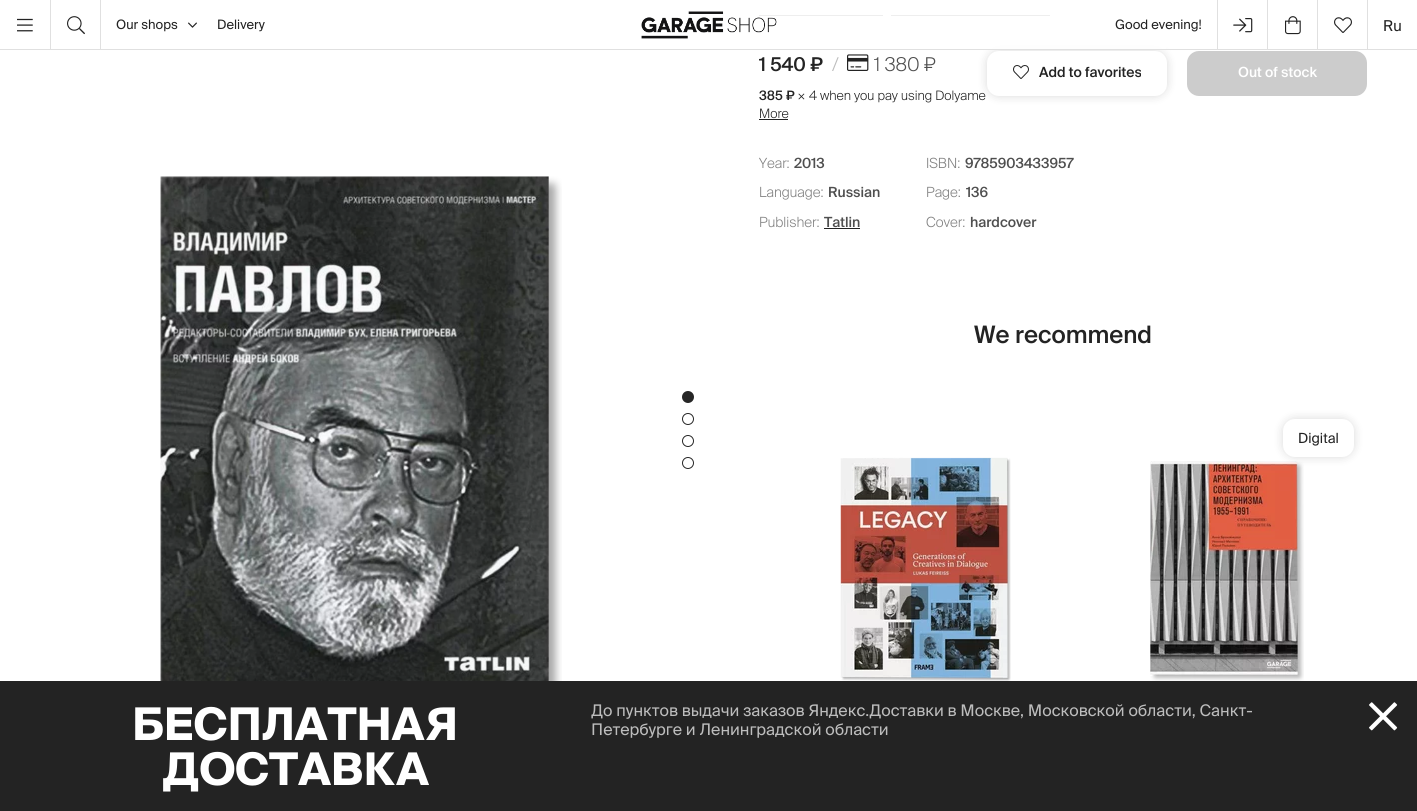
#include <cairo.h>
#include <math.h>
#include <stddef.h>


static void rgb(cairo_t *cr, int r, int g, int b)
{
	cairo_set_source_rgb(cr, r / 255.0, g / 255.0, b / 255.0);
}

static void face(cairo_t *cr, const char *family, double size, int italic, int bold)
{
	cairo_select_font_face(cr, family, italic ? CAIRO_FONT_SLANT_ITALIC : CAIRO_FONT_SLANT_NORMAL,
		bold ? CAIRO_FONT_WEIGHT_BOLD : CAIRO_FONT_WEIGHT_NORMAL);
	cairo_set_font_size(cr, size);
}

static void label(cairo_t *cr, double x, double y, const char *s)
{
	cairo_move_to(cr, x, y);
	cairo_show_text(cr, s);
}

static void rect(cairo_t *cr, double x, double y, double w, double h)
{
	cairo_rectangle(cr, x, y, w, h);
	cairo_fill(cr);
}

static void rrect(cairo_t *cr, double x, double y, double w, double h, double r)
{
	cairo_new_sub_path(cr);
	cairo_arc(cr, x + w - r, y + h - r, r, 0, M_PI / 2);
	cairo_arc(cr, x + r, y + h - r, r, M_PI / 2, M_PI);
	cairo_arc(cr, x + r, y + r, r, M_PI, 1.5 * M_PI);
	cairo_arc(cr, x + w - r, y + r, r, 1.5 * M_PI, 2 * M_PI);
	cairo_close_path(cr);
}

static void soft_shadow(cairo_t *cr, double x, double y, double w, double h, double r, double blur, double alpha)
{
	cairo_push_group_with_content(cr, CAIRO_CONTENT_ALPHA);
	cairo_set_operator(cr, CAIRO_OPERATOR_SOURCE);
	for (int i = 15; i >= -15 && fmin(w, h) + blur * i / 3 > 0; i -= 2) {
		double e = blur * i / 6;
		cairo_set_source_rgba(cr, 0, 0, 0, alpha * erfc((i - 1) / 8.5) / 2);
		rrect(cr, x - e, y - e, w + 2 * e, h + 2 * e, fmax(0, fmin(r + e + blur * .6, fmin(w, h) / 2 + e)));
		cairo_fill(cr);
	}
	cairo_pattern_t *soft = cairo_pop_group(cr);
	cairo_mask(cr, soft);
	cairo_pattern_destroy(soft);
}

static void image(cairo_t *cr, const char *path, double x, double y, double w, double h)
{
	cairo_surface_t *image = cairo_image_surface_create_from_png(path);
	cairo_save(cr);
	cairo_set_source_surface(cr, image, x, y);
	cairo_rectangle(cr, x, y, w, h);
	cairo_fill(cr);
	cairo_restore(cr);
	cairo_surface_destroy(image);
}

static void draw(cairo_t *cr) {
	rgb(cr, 255, 255, 255);
	cairo_paint(cr);
	rgb(cr, 79, 79, 79);
	rect(cr, 759, 15, 124, 1);
	rect(cr, 891, 15, 159, 1);
	rgb(cr, 0, 0, 0);
	soft_shadow(cr, 987, 51, 180, 45, 12, 5, 0.15);
	cairo_set_source_rgba(cr, 1, 1, 1, 0.9);
	rect(cr, 759, 15, 407, 34);
	rgb(cr, 224, 224, 224);
	rect(cr, 0, 49, 1417, 1);
	image(cr, "image0.png", 17, 18, 16, 14);
	rect(cr, 50, 0, 1, 50);
	image(cr, "image1.png", 67, 16, 18, 19);
	rect(cr, 100, 0, 1, 50);
	face(cr, "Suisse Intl", 13, 0, 0);
	rgb(cr, 35, 35, 35);
	label(cr, 116, 29, "Our shops");
	image(cr, "image2.png", 188, 22, 9, 6);
	label(cr, 217, 29, "Delivery");
	image(cr, "image3.png", 641, 11, 136, 28);
	label(cr, 1115, 29, "Good evening!");
	rgb(cr, 224, 224, 224);
	rect(cr, 1217, 0, 1, 50);
	image(cr, "image4.png", 1233, 18, 20, 15);
	rect(cr, 1267, 0, 1, 50);
	image(cr, "image5.png", 1285, 16, 16, 19);
	rect(cr, 1317, 0, 1, 50);
	image(cr, "image6.png", 1334, 17, 18, 16);
	rect(cr, 1367, 0, 1, 50);
	face(cr, "Suisse Intl", 15, 0, 0);
	rgb(cr, 35, 35, 35);
	label(cr, 1383, 31, "Ru");
	image(cr, "image7.png", 160, 176, 402, 505);
	rgb(cr, 38, 38, 38);
	cairo_arc(cr, 688, 397, 6, 0, 2 * M_PI);
	cairo_fill(cr);
	cairo_arc(cr, 688, 419, 5.5, 0, 2 * M_PI);
	cairo_set_line_width(cr, 1);
	cairo_stroke(cr);
	cairo_arc(cr, 688, 441, 5.5, 0, 2 * M_PI);
	cairo_stroke(cr);
	cairo_arc(cr, 688, 463, 5.5, 0, 2 * M_PI);
	cairo_stroke(cr);
	face(cr, "Suisse Intl Medium", 19, 0, 0);
	rgb(cr, 35, 35, 35);
	label(cr, 759, 71, "1 540 ₽");
	face(cr, "Suisse Intl Light", 19, 0, 0);
	rgb(cr, 189, 189, 189);
	label(cr, 832, 71, "/");
	image(cr, "image8.png", 847, 54, 22, 17);
	rgb(cr, 79, 79, 79);
	label(cr, 874, 71, "1 380 ₽");
	face(cr, "Suisse Intl Medium", 13, 0, 0);
	rgb(cr, 35, 35, 35);
	label(cr, 759, 100, "385 ₽");
	face(cr, "Suisse Intl Light", 13, 0, 0);
	label(cr, 797, 100, "× 4 when you pay using Dolyame");
	label(cr, 759, 118, "More");
	rect(cr, 759, 119, 29, 1);
	rgb(cr, 255, 255, 255);
	rrect(cr, 987, 51, 180, 45, 12);
	cairo_fill(cr);
	image(cr, "image9.png", 1013, 65, 16, 14);
	face(cr, "Suisse Intl Medium", 14, 0, 0);
	rgb(cr, 35, 35, 35);
	label(cr, 1039, 77, "Add to favorites");
	rgb(cr, 204, 204, 204);
	rrect(cr, 1187, 51, 180, 45, 12);
	cairo_fill(cr);
	rgb(cr, 255, 255, 255);
	label(cr, 1238, 77, "Out of stock");
	face(cr, "Suisse Intl Light", 14, 0, 0);
	rgb(cr, 130, 130, 130);
	label(cr, 759, 168, "Year:");
	face(cr, "Suisse Intl Medium", 14, 0, 0);
	rgb(cr, 79, 79, 79);
	label(cr, 794, 168, "2013");
	face(cr, "Suisse Intl Light", 14, 0, 0);
	rgb(cr, 130, 130, 130);
	label(cr, 926, 168, "ISBN:");
	face(cr, "Suisse Intl Medium", 14, 0, 0);
	rgb(cr, 79, 79, 79);
	label(cr, 965, 168, "9785903433957");
	face(cr, "Suisse Intl Light", 14, 0, 0);
	rgb(cr, 130, 130, 130);
	label(cr, 759, 197, "Language:");
	face(cr, "Suisse Intl Medium", 14, 0, 0);
	rgb(cr, 79, 79, 79);
	label(cr, 828, 197, "Russian");
	face(cr, "Suisse Intl Light", 14, 0, 0);
	rgb(cr, 130, 130, 130);
	label(cr, 926, 197, "Page:");
	face(cr, "Suisse Intl Medium", 14, 0, 0);
	rgb(cr, 79, 79, 79);
	label(cr, 966, 197, "136");
	face(cr, "Suisse Intl Light", 14, 0, 0);
	rgb(cr, 130, 130, 130);
	label(cr, 759, 227, "Publisher:");
	face(cr, "Suisse Intl Medium", 14, 0, 0);
	rgb(cr, 79, 79, 79);
	label(cr, 824, 227, "Tatlin");
	rgb(cr, 35, 35, 35);
	rect(cr, 824, 228, 36, 1);
	face(cr, "Suisse Intl Light", 14, 0, 0);
	rgb(cr, 130, 130, 130);
	label(cr, 926, 227, "Cover:");
	face(cr, "Suisse Intl Medium", 14, 0, 0);
	rgb(cr, 79, 79, 79);
	label(cr, 970, 227, "hardcover");
	face(cr, "Suisse Intl Medium", 24, 0, 0);
	rgb(cr, 35, 35, 35);
	label(cr, 974, 343, "We recommend");
	image(cr, "image10.png", 1150, 461, 154, 220);
	rgb(cr, 0, 0, 0);
	soft_shadow(cr, 1283, 419, 71, 38, 12, 5, 0.15);
	rgb(cr, 255, 255, 255);
	rrect(cr, 1283, 419, 71, 38, 12);
	cairo_fill(cr);
	face(cr, "Suisse Intl", 14, 0, 0);
	rgb(cr, 35, 35, 35);
	label(cr, 1298, 443, "Digital");
	image(cr, "image11.png", 840, 457, 171, 224);
	rect(cr, 0, 681, 1417, 130);
	face(cr, "Suisse Intl", 45, 0, 1);
	rgb(cr, 255, 255, 255);
	label(cr, 132, 740, "БЕСПЛАТНАЯ");
	label(cr, 162, 785, "ДОСТАВКА");
	face(cr, "Suisse Intl", 16, 0, 0);
	rgb(cr, 189, 189, 189);
	label(cr, 591, 716, "До пунктов выдачи заказов Яндекс.Доставки в Москве, Московской области, Санкт-");
	label(cr, 591, 735, "Петербурге и Ленинградской области");
	image(cr, "image12.png", 1369, 702, 29, 29);
}

int main(void) {
	cairo_surface_t *surface = cairo_image_surface_create(CAIRO_FORMAT_RGB24, 1417, 811);
	cairo_t *cr = cairo_create(surface);
	cairo_font_options_t *options = cairo_font_options_create();
	cairo_font_options_set_hint_metrics(options, CAIRO_HINT_METRICS_OFF);
	cairo_font_options_set_hint_style(options, CAIRO_HINT_STYLE_NONE);
	cairo_set_font_options(cr, options);
	cairo_set_miter_limit(cr, 4);
	draw(cr);
	cairo_surface_write_to_png(surface, "render.png");
	cairo_font_options_destroy(options);
	cairo_destroy(cr);
	cairo_surface_destroy(surface);
	return 0;
}
